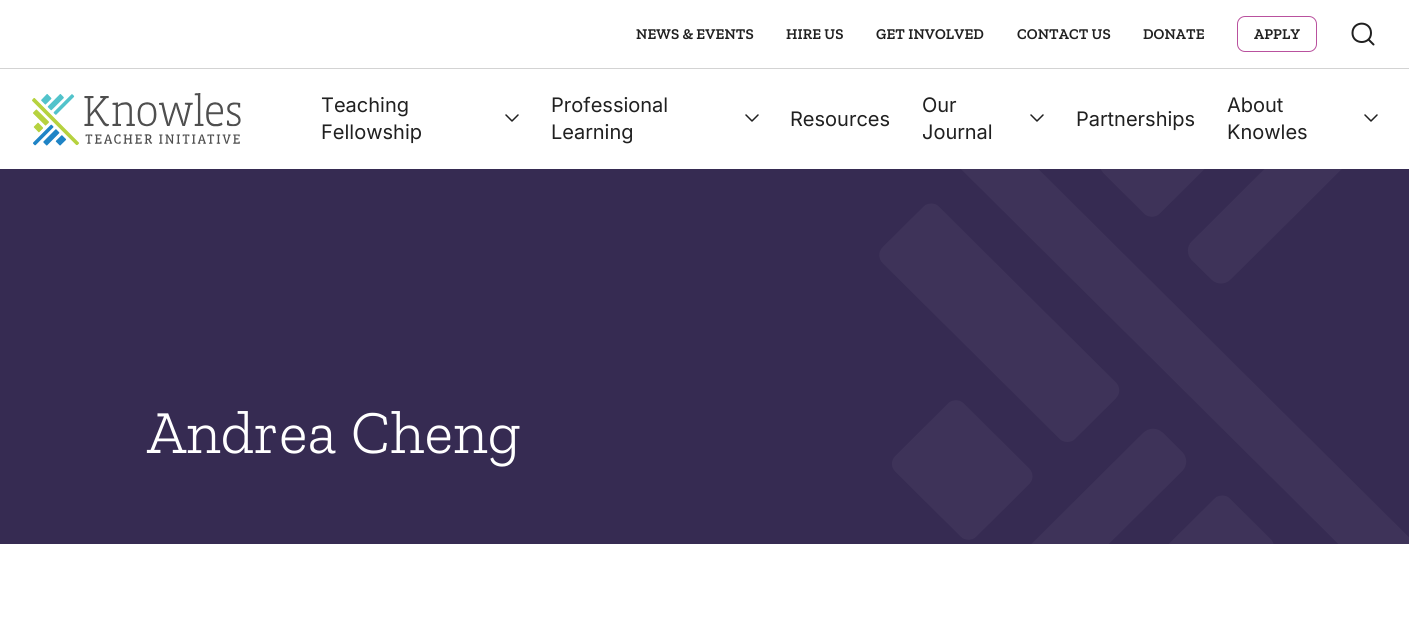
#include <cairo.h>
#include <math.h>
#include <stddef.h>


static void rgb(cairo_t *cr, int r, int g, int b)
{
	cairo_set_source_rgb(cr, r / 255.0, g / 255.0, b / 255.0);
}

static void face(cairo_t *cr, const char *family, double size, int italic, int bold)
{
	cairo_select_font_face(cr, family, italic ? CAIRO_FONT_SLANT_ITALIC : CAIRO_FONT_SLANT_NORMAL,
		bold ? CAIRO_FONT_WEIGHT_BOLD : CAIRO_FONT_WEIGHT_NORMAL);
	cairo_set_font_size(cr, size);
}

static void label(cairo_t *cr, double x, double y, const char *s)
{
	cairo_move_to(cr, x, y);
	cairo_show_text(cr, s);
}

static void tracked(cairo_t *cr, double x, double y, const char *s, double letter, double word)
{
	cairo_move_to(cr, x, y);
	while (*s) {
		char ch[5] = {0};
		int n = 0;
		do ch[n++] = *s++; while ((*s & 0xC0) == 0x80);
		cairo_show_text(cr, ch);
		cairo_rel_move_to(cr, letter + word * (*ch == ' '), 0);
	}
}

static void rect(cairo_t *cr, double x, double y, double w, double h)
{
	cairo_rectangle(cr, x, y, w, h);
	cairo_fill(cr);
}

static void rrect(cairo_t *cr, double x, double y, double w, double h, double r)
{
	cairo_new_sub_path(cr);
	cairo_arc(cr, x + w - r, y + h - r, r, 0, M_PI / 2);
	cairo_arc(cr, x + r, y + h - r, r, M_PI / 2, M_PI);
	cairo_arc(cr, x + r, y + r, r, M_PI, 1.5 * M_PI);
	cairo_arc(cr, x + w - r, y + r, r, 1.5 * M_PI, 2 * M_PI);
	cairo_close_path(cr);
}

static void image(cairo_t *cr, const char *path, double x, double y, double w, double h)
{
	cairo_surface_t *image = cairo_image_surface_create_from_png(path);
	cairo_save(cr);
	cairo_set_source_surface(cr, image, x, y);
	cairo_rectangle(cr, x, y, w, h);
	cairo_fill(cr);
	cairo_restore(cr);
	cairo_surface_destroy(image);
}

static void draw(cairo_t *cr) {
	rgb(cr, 255, 255, 255);
	cairo_paint(cr);
	rgb(cr, 211, 211, 211);
	rect(cr, 0, 68, 1409, 1);
	face(cr, "Zilla Slab SemiBold", 15, 0, 0);
	rgb(cr, 32, 32, 32);
	tracked(cr, 636, 39, "NEWS & EVENTS", 0.1, 0);
	tracked(cr, 786, 39, "HIRE US", 0.1, 0);
	tracked(cr, 876, 39, "GET INVOLVED", 0.1, 0);
	tracked(cr, 1017, 39, "CONTACT US", 0.1, 0);
	tracked(cr, 1143, 39, "DONATE", 0.1, 0);
	rrect(cr, 1237.5, 16.5, 79, 35, 7.5);
	rgb(cr, 185, 81, 158);
	cairo_set_line_width(cr, 1);
	cairo_stroke(cr);
	rgb(cr, 32, 32, 32);
	tracked(cr, 1254, 39, "APPLY", 0.1, 0);
	cairo_new_path(cr);
	cairo_move_to(cr, 1373.5, 44.5);
	cairo_line_to(cr, 1368.5, 39.5);
	cairo_move_to(cr, 1371, 33);
	cairo_curve_to(cr, 1371, 45, 1352.5, 45, 1352.5, 33);
	cairo_curve_to(cr, 1352.5, 20.5, 1371, 20.5, 1371, 33);
	cairo_close_path(cr);
	cairo_set_line_width(cr, 2);
	cairo_set_line_cap(cr, CAIRO_LINE_CAP_ROUND);
	cairo_set_line_join(cr, CAIRO_LINE_JOIN_ROUND);
	cairo_stroke(cr);
	image(cr, "image0.png", 32, 93, 209, 53);
	face(cr, "Inter", 20, 0, 0);
	label(cr, 321, 112, "Teaching");
	cairo_new_path(cr);
	cairo_move_to(cr, 506, 115);
	cairo_line_to(cr, 512, 121);
	cairo_line_to(cr, 518, 115);
	cairo_set_line_width(cr, 1.5);
	cairo_stroke(cr);
	label(cr, 321, 139, "Fellowship");
	label(cr, 551, 112, "Professional");
	cairo_new_path(cr);
	cairo_move_to(cr, 746, 115);
	cairo_line_to(cr, 752, 121);
	cairo_line_to(cr, 758, 115);
	cairo_stroke(cr);
	label(cr, 551, 139, "Learning");
	label(cr, 790, 126, "Resources");
	label(cr, 922, 112, "Our");
	cairo_new_path(cr);
	cairo_move_to(cr, 1031, 115);
	cairo_line_to(cr, 1037, 121);
	cairo_line_to(cr, 1043, 115);
	cairo_stroke(cr);
	label(cr, 922, 139, "Journal");
	label(cr, 1076, 126, "Partnerships");
	label(cr, 1227, 112, "About");
	cairo_new_path(cr);
	cairo_move_to(cr, 1365, 115);
	cairo_line_to(cr, 1371, 121);
	cairo_line_to(cr, 1377, 115);
	cairo_stroke(cr);
	label(cr, 1227, 139, "Knowles");
	rgb(cr, 54, 43, 82);
	rect(cr, 0, 169, 1409, 375);
	face(cr, "Zilla Slab Light", 61, 0, 0);
	rgb(cr, 255, 255, 255);
	label(cr, 147, 453, "Andrea Cheng");
	image(cr, "image1.png", 879, 169, 530, 375);
}

int main(void) {
	cairo_surface_t *surface = cairo_image_surface_create(CAIRO_FORMAT_RGB24, 1409, 638);
	cairo_t *cr = cairo_create(surface);
	cairo_font_options_t *options = cairo_font_options_create();
	cairo_font_options_set_hint_metrics(options, CAIRO_HINT_METRICS_OFF);
	cairo_font_options_set_hint_style(options, CAIRO_HINT_STYLE_NONE);
	cairo_set_font_options(cr, options);
	cairo_set_miter_limit(cr, 4);
	draw(cr);
	cairo_surface_write_to_png(surface, "render.png");
	cairo_font_options_destroy(options);
	cairo_destroy(cr);
	cairo_surface_destroy(surface);
	return 0;
}
